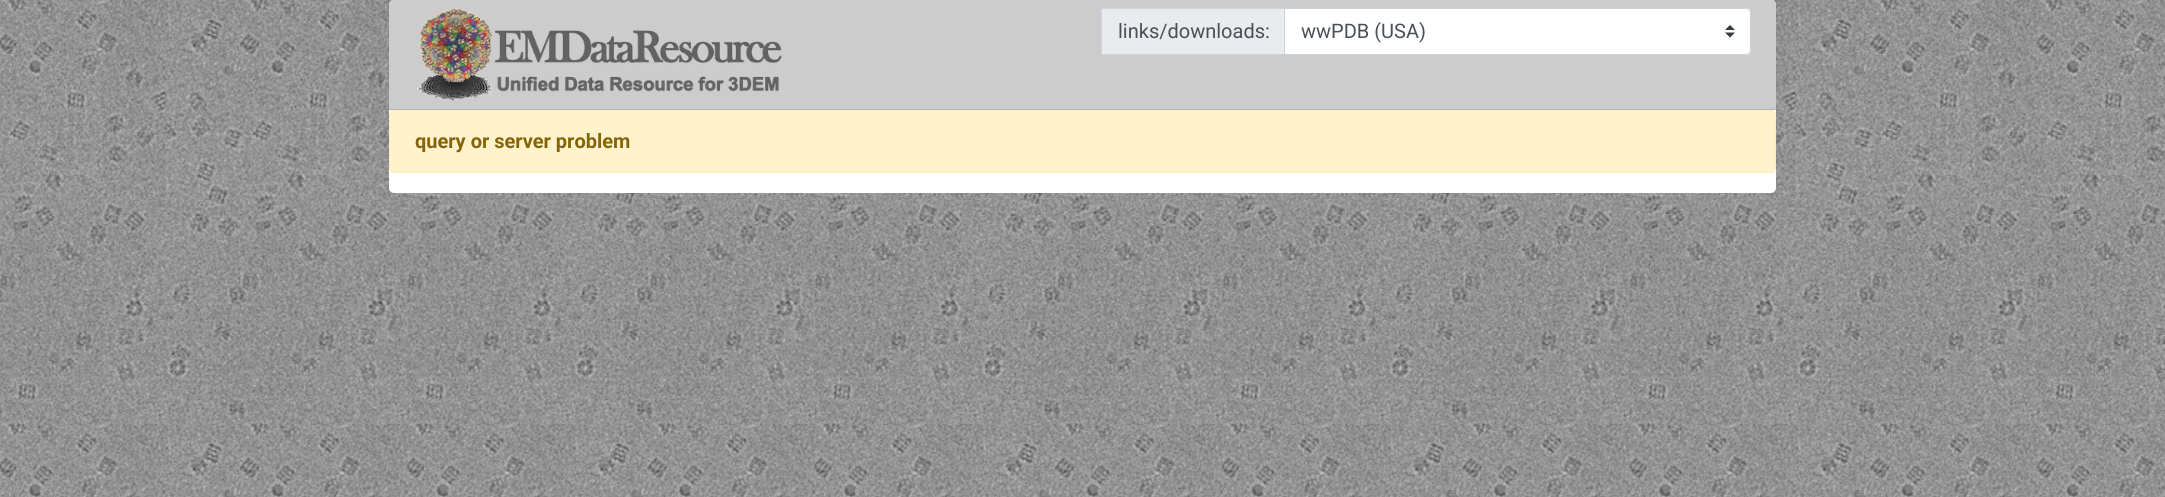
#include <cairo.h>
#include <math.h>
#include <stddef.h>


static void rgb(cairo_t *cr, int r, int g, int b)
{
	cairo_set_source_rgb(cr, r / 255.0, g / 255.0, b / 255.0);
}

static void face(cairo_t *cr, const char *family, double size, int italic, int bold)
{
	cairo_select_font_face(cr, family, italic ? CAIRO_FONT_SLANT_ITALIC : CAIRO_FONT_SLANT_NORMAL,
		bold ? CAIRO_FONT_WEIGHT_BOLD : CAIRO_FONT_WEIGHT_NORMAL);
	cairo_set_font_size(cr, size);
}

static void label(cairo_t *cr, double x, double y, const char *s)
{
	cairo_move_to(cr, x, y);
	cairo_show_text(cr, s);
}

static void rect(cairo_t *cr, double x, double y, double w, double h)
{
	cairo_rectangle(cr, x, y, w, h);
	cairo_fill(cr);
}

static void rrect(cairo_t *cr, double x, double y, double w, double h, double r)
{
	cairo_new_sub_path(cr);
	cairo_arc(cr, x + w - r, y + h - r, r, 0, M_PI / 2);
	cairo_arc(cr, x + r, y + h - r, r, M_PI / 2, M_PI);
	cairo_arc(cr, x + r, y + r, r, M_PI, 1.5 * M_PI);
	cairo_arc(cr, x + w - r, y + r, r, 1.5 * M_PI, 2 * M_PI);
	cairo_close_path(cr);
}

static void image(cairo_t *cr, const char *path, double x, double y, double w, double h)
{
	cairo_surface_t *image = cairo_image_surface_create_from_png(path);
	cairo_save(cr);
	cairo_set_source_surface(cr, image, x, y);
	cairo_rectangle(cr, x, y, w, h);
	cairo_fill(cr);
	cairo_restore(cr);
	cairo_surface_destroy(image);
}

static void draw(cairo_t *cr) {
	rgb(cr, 255, 255, 255);
	cairo_paint(cr);
	image(cr, "image0.png", 0, 0, 2165, 497);
	rgb(cr, 255, 255, 255);
	rrect(cr, 389, 0, 1387, 193, 5);
	cairo_fill(cr);
	rgb(cr, 204, 204, 204);
	cairo_new_path(cr);
	cairo_move_to(cr, 393, 0);
	cairo_line_to(cr, 1772, 0);
	cairo_curve_to(cr, 1774, 0, 1776, 2, 1776, 4);
	cairo_line_to(cr, 1776, 110);
	cairo_line_to(cr, 389, 110);
	cairo_line_to(cr, 389, 4);
	cairo_curve_to(cr, 389, 2, 391, 0, 393, 0);
	cairo_close_path(cr);
	cairo_fill(cr);
	rgb(cr, 179, 179, 179);
	rect(cr, 389, 109, 1387, 1);
	image(cr, "image1.png", 417, 7, 365, 94);
	rgb(cr, 233, 236, 239);
	cairo_rectangle(cr, 1101.5, 8.5, 183, 46);
	cairo_fill_preserve(cr);
	rgb(cr, 206, 212, 218);
	cairo_set_line_width(cr, 1);
	cairo_stroke(cr);
	face(cr, "Roboto", 20, 0, 0);
	rgb(cr, 73, 80, 87);
	label(cr, 1118, 38, "links/downloads:");
	rgb(cr, 255, 255, 255);
	cairo_new_path(cr);
	cairo_move_to(cr, 1284, 8);
	cairo_line_to(cr, 1746, 8);
	cairo_curve_to(cr, 1749, 8, 1751, 10, 1751, 13);
	cairo_line_to(cr, 1751, 50);
	cairo_curve_to(cr, 1751, 53, 1749, 55, 1746, 55);
	cairo_line_to(cr, 1284, 55);
	cairo_close_path(cr);
	cairo_fill(cr);
	image(cr, "image2.png", 1725, 25, 10, 13);
	cairo_new_path(cr);
	cairo_move_to(cr, 1284.5, 8.5);
	cairo_line_to(cr, 1746, 8.5);
	cairo_curve_to(cr, 1748.5, 8.5, 1750.5, 10.5, 1750.5, 13);
	cairo_line_to(cr, 1750.5, 50);
	cairo_curve_to(cr, 1750.5, 52.5, 1748.5, 54.5, 1746, 54.5);
	cairo_line_to(cr, 1284.5, 54.5);
	cairo_close_path(cr);
	rgb(cr, 206, 212, 218);
	cairo_stroke(cr);
	rgb(cr, 73, 80, 87);
	label(cr, 1301, 38, "wwPDB (USA)");
	rgb(cr, 255, 243, 205);
	rrect(cr, 389.5, 110.5, 1386, 62, 4.5);
	cairo_fill_preserve(cr);
	rgb(cr, 255, 238, 186);
	cairo_stroke(cr);
	face(cr, "Roboto", 20, 0, 1);
	rgb(cr, 133, 100, 4);
	label(cr, 415, 148, "query or server problem");
}

int main(void) {
	cairo_surface_t *surface = cairo_image_surface_create(CAIRO_FORMAT_RGB24, 2165, 497);
	cairo_t *cr = cairo_create(surface);
	cairo_font_options_t *options = cairo_font_options_create();
	cairo_font_options_set_hint_metrics(options, CAIRO_HINT_METRICS_OFF);
	cairo_font_options_set_hint_style(options, CAIRO_HINT_STYLE_NONE);
	cairo_set_font_options(cr, options);
	cairo_set_miter_limit(cr, 4);
	draw(cr);
	cairo_surface_write_to_png(surface, "render.png");
	cairo_font_options_destroy(options);
	cairo_destroy(cr);
	cairo_surface_destroy(surface);
	return 0;
}
